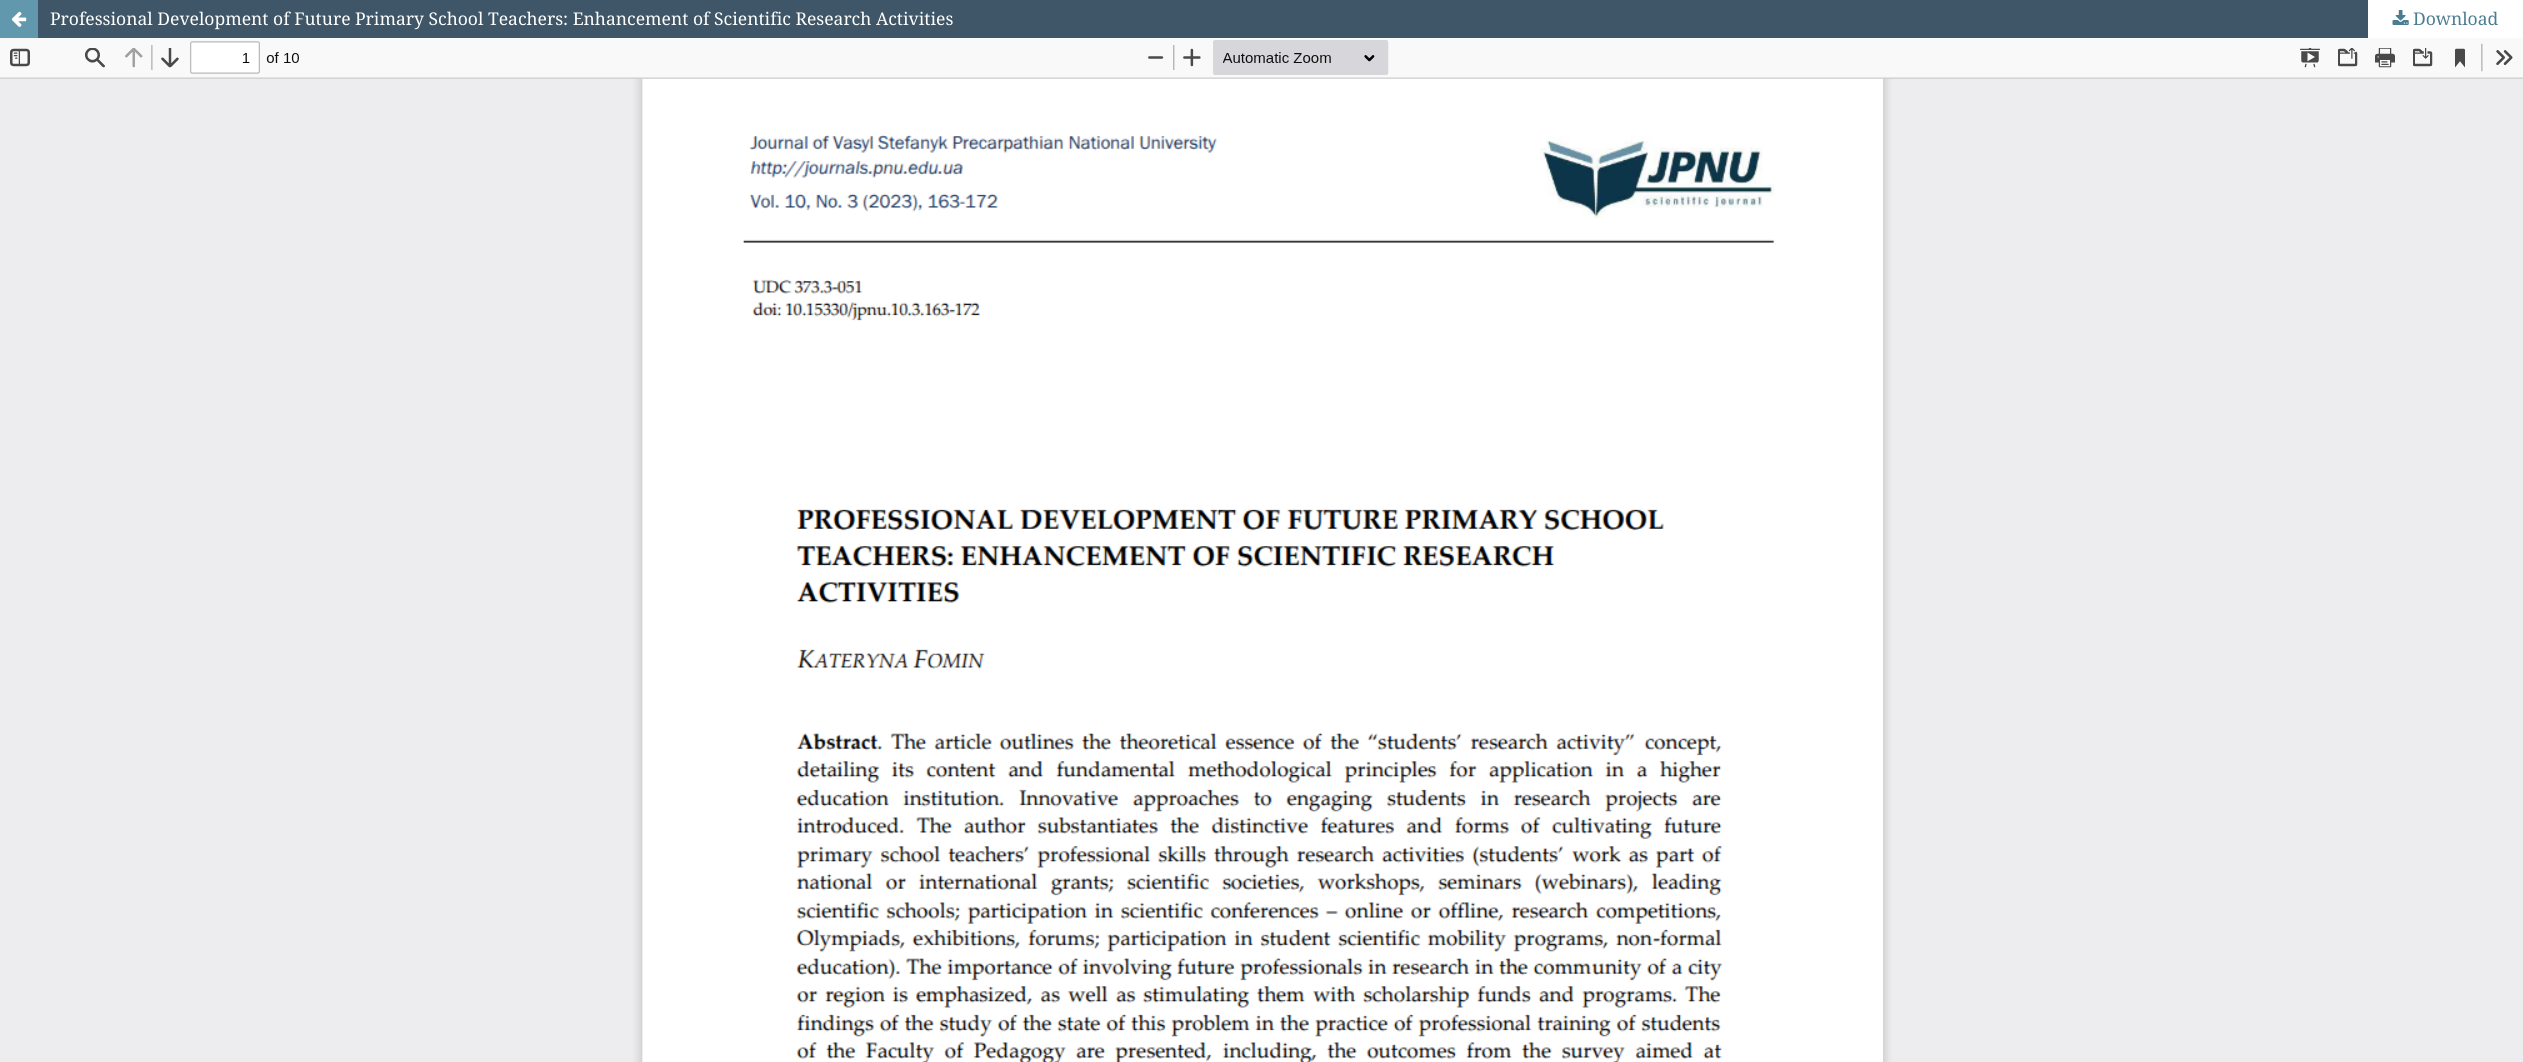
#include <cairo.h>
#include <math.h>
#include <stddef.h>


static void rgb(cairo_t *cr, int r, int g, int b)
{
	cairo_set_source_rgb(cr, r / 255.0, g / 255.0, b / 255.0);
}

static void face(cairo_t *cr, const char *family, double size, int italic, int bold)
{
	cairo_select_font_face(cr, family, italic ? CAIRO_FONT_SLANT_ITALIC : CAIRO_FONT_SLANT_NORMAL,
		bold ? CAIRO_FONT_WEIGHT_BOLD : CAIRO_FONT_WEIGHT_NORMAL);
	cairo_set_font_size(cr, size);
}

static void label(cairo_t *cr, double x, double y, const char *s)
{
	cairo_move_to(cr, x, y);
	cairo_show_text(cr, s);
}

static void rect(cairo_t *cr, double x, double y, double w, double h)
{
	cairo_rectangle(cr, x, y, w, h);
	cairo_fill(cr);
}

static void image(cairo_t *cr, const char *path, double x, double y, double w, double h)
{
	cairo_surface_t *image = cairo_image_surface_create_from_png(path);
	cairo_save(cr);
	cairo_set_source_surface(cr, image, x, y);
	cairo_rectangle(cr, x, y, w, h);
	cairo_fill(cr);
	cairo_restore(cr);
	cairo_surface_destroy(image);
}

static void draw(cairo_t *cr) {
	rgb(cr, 255, 255, 255);
	cairo_paint(cr);
	rgb(cr, 62, 86, 103);
	rect(cr, 38, 0, 2330, 38);
	rgb(cr, 98, 152, 174);
	rect(cr, 0, 0, 38, 38);
	image(cr, "image0.png", 11, 11, 16, 16);
	face(cr, "Noto Serif", 17.5, 0, 0);
	rgb(cr, 255, 255, 255);
	label(cr, 50, 25, "Professional Development of Future Primary School Teachers: Enhancement of Scientific Research Activities");
	image(cr, "image1.png", 2392, 10, 17, 15);
	rgb(cr, 75, 125, 146);
	label(cr, 2413, 25, "Download");
	image(cr, "image2.png", 0, 38, 2523, 1024);
}

int main(void) {
	cairo_surface_t *surface = cairo_image_surface_create(CAIRO_FORMAT_RGB24, 2523, 1062);
	cairo_t *cr = cairo_create(surface);
	cairo_font_options_t *options = cairo_font_options_create();
	cairo_font_options_set_hint_metrics(options, CAIRO_HINT_METRICS_OFF);
	cairo_font_options_set_hint_style(options, CAIRO_HINT_STYLE_NONE);
	cairo_set_font_options(cr, options);
	cairo_set_miter_limit(cr, 4);
	draw(cr);
	cairo_surface_write_to_png(surface, "render.png");
	cairo_font_options_destroy(options);
	cairo_destroy(cr);
	cairo_surface_destroy(surface);
	return 0;
}
